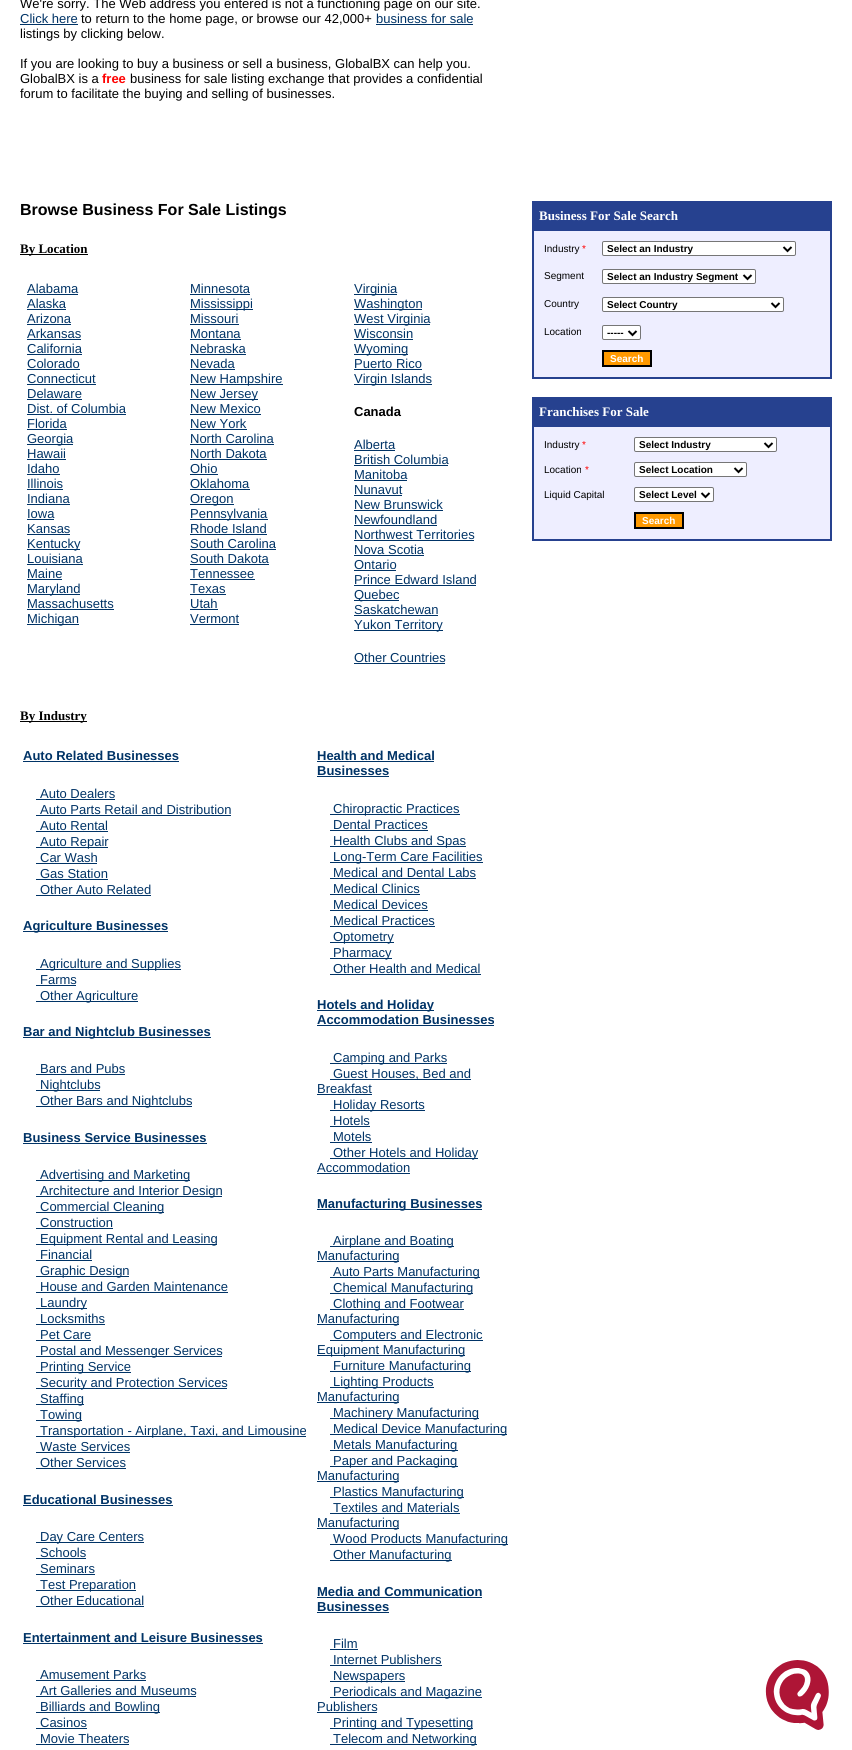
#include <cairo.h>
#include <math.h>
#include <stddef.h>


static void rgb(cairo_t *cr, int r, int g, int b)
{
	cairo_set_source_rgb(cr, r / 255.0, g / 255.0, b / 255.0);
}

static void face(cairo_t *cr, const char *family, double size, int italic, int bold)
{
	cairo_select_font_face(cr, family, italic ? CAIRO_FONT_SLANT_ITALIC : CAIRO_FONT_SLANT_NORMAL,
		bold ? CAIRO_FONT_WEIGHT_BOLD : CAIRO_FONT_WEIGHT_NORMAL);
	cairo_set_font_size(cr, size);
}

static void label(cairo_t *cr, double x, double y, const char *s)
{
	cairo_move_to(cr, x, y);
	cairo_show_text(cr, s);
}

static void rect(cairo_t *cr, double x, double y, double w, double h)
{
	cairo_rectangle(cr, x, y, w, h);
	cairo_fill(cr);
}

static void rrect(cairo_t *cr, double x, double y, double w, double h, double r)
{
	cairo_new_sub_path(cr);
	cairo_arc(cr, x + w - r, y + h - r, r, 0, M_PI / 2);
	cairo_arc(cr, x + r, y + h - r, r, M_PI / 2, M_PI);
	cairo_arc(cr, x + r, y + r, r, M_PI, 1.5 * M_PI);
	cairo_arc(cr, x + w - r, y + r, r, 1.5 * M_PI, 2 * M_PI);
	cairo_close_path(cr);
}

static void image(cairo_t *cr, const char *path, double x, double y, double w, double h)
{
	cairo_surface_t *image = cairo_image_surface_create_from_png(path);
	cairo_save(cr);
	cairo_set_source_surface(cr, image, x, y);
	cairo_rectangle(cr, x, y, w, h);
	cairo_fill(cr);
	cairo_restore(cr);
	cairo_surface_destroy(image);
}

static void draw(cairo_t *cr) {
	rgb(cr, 255, 255, 255);
	cairo_paint(cr);
	face(cr, "Liberation Sans", 13, 0, 0);
	rgb(cr, 0, 0, 0);
	label(cr, 20, 8, "We're sorry. The Web address you entered is not a functioning page on our site.");
	rgb(cr, 0, 51, 102);
	label(cr, 20, 23, "Click here");
	rect(cr, 20, 24, 58, 1);
	rgb(cr, 0, 0, 0);
	label(cr, 81, 23, "to return to the home page, or browse our 42,000+");
	rgb(cr, 0, 51, 102);
	label(cr, 376, 23, "business for sale");
	rect(cr, 376, 24, 97, 1);
	rgb(cr, 0, 0, 0);
	label(cr, 20, 38, "listings by clicking below.");
	label(cr, 20, 68, "If you are looking to buy a business or sell a business, GlobalBX can help you.");
	label(cr, 20, 83, "GlobalBX is a");
	face(cr, "Liberation Sans", 13, 0, 1);
	rgb(cr, 255, 0, 0);
	label(cr, 102, 83, "free");
	face(cr, "Liberation Sans", 13, 0, 0);
	rgb(cr, 0, 0, 0);
	label(cr, 130, 83, "business for sale listing exchange that provides a confidential");
	label(cr, 20, 98, "forum to facilitate the buying and selling of businesses.");
	face(cr, "Liberation Sans", 16, 0, 1);
	label(cr, 20, 215, "Browse Business For Sale Listings");
	rect(cr, 20, 254, 68, 1);
	face(cr, "Liberation Serif", 13, 0, 1);
	label(cr, 20, 253, "By Location");
	face(cr, "Liberation Sans", 13, 0, 0);
	rgb(cr, 0, 51, 102);
	label(cr, 27, 293, "Alabama");
	rect(cr, 27, 294, 51, 1);
	label(cr, 27, 308, "Alaska");
	rect(cr, 27, 309, 39, 1);
	label(cr, 27, 323, "Arizona");
	rect(cr, 27, 324, 44, 1);
	label(cr, 27, 338, "Arkansas");
	rect(cr, 27, 339, 54, 1);
	label(cr, 27, 353, "California");
	rect(cr, 27, 354, 55, 1);
	label(cr, 27, 368, "Colorado");
	rect(cr, 27, 369, 53, 1);
	label(cr, 27, 383, "Connecticut");
	rect(cr, 27, 384, 69, 1);
	label(cr, 27, 398, "Delaware");
	rect(cr, 27, 399, 55, 1);
	label(cr, 27, 413, "Dist. of Columbia");
	rect(cr, 27, 414, 99, 1);
	label(cr, 27, 428, "Florida");
	rect(cr, 27, 429, 40, 1);
	rect(cr, 27, 444, 46, 1);
	label(cr, 27, 443, "Georgia");
	label(cr, 27, 458, "Hawaii");
	rect(cr, 27, 459, 39, 1);
	label(cr, 27, 473, "Idaho");
	rect(cr, 27, 474, 33, 1);
	label(cr, 27, 488, "Illinois");
	rect(cr, 27, 489, 36, 1);
	label(cr, 27, 503, "Indiana");
	rect(cr, 27, 504, 43, 1);
	label(cr, 27, 518, "Iowa");
	rect(cr, 27, 519, 27, 1);
	label(cr, 27, 533, "Kansas");
	rect(cr, 27, 534, 43, 1);
	rect(cr, 27, 549, 53, 1);
	label(cr, 27, 548, "Kentucky");
	label(cr, 27, 563, "Louisiana");
	rect(cr, 27, 564, 56, 1);
	label(cr, 27, 578, "Maine");
	rect(cr, 27, 579, 35, 1);
	rect(cr, 27, 594, 53, 1);
	label(cr, 27, 593, "Maryland");
	label(cr, 27, 608, "Massachusetts");
	rect(cr, 27, 609, 87, 1);
	rect(cr, 27, 624, 52, 1);
	label(cr, 27, 623, "Michigan");
	label(cr, 190, 293, "Minnesota");
	rect(cr, 190, 294, 60, 1);
	rect(cr, 190, 309, 63, 1);
	label(cr, 190, 308, "Mississippi");
	label(cr, 190, 323, "Missouri");
	rect(cr, 190, 324, 49, 1);
	label(cr, 190, 338, "Montana");
	rect(cr, 190, 339, 51, 1);
	label(cr, 190, 353, "Nebraska");
	rect(cr, 190, 354, 56, 1);
	label(cr, 190, 368, "Nevada");
	rect(cr, 190, 369, 45, 1);
	rect(cr, 190, 384, 93, 1);
	label(cr, 190, 383, "New Hampshire");
	rect(cr, 190, 399, 68, 1);
	label(cr, 190, 398, "New Jersey");
	label(cr, 190, 413, "New Mexico");
	rect(cr, 190, 414, 71, 1);
	label(cr, 190, 428, "New York");
	rect(cr, 190, 429, 57, 1);
	label(cr, 190, 443, "North Carolina");
	rect(cr, 190, 444, 84, 1);
	label(cr, 190, 458, "North Dakota");
	rect(cr, 190, 459, 77, 1);
	label(cr, 190, 473, "Ohio");
	rect(cr, 190, 474, 28, 1);
	label(cr, 190, 488, "Oklahoma");
	rect(cr, 190, 489, 60, 1);
	rect(cr, 190, 504, 44, 1);
	label(cr, 190, 503, "Oregon");
	rect(cr, 190, 519, 78, 1);
	label(cr, 190, 518, "Pennsylvania");
	label(cr, 190, 533, "Rhode Island");
	rect(cr, 190, 534, 77, 1);
	label(cr, 190, 548, "South Carolina");
	rect(cr, 190, 549, 86, 1);
	label(cr, 190, 563, "South Dakota");
	rect(cr, 190, 564, 79, 1);
	label(cr, 190, 578, "Tennessee");
	rect(cr, 190, 579, 65, 1);
	label(cr, 190, 593, "Texas");
	rect(cr, 190, 594, 36, 1);
	label(cr, 190, 608, "Utah");
	rect(cr, 190, 609, 28, 1);
	label(cr, 190, 623, "Vermont");
	rect(cr, 190, 624, 49, 1);
	rect(cr, 354, 294, 43, 1);
	label(cr, 354, 293, "Virginia");
	rect(cr, 354, 309, 68, 1);
	label(cr, 354, 308, "Washington");
	rect(cr, 354, 324, 76, 1);
	label(cr, 354, 323, "West Virginia");
	label(cr, 354, 338, "Wisconsin");
	rect(cr, 354, 339, 59, 1);
	rect(cr, 354, 354, 54, 1);
	label(cr, 354, 353, "Wyoming");
	label(cr, 354, 368, "Puerto Rico");
	rect(cr, 354, 369, 68, 1);
	rect(cr, 354, 384, 78, 1);
	label(cr, 354, 383, "Virgin Islands");
	face(cr, "Liberation Sans", 13, 0, 1);
	rgb(cr, 0, 0, 0);
	label(cr, 354, 416, "Canada");
	face(cr, "Liberation Sans", 13, 0, 0);
	rgb(cr, 0, 51, 102);
	label(cr, 354, 449, "Alberta");
	rect(cr, 354, 450, 41, 1);
	label(cr, 354, 464, "British Columbia");
	rect(cr, 354, 465, 94, 1);
	label(cr, 354, 479, "Manitoba");
	rect(cr, 354, 480, 53, 1);
	label(cr, 354, 494, "Nunavut");
	rect(cr, 354, 495, 48, 1);
	label(cr, 354, 509, "New Brunswick");
	rect(cr, 354, 510, 89, 1);
	label(cr, 354, 524, "Newfoundland");
	rect(cr, 354, 525, 83, 1);
	label(cr, 354, 539, "Northwest Territories");
	rect(cr, 354, 540, 120, 1);
	label(cr, 354, 554, "Nova Scotia");
	rect(cr, 354, 555, 70, 1);
	label(cr, 354, 569, "Ontario");
	rect(cr, 354, 570, 42, 1);
	label(cr, 354, 584, "Prince Edward Island");
	rect(cr, 354, 585, 122, 1);
	rect(cr, 354, 600, 45, 1);
	label(cr, 354, 599, "Quebec");
	label(cr, 354, 614, "Saskatchewan");
	rect(cr, 354, 615, 84, 1);
	rect(cr, 354, 630, 89, 1);
	label(cr, 354, 629, "Yukon Territory");
	label(cr, 354, 662, "Other Countries");
	rect(cr, 354, 663, 91, 1);
	rgb(cr, 0, 0, 0);
	rect(cr, 20, 721, 67, 1);
	face(cr, "Liberation Serif", 13, 0, 1);
	label(cr, 20, 720, "By Industry");
	face(cr, "Liberation Sans", 13, 0, 1);
	rgb(cr, 0, 51, 102);
	label(cr, 23, 760, "Auto Related Businesses");
	rect(cr, 23, 761, 156, 1);
	face(cr, "Liberation Sans", 13, 0, 0);
	label(cr, 40, 798, "Auto Dealers");
	rect(cr, 36, 799, 79, 1);
	label(cr, 40, 814, "Auto Parts Retail and Distribution");
	rect(cr, 36, 815, 195, 1);
	label(cr, 40, 830, "Auto Rental");
	rect(cr, 36, 831, 72, 1);
	rect(cr, 36, 847, 72, 1);
	label(cr, 40, 846, "Auto Repair");
	label(cr, 40, 862, "Car Wash");
	rect(cr, 36, 863, 61, 1);
	label(cr, 40, 878, "Gas Station");
	rect(cr, 36, 879, 72, 1);
	label(cr, 40, 894, "Other Auto Related");
	rect(cr, 36, 895, 115, 1);
	rect(cr, 23, 931, 145, 1);
	face(cr, "Liberation Sans", 13, 0, 1);
	label(cr, 23, 930, "Agriculture Businesses");
	rect(cr, 36, 969, 145, 1);
	face(cr, "Liberation Sans", 13, 0, 0);
	label(cr, 40, 968, "Agriculture and Supplies");
	label(cr, 40, 984, "Farms");
	rect(cr, 36, 985, 40, 1);
	rect(cr, 36, 1001, 102, 1);
	label(cr, 40, 1000, "Other Agriculture");
	rect(cr, 23, 1037, 188, 1);
	face(cr, "Liberation Sans", 13, 0, 1);
	label(cr, 23, 1036, "Bar and Nightclub Businesses");
	face(cr, "Liberation Sans", 13, 0, 0);
	label(cr, 40, 1073, "Bars and Pubs");
	rect(cr, 36, 1074, 89, 1);
	rect(cr, 36, 1090, 64, 1);
	label(cr, 40, 1089, "Nightclubs");
	rect(cr, 36, 1106, 156, 1);
	label(cr, 40, 1105, "Other Bars and Nightclubs");
	face(cr, "Liberation Sans", 13, 0, 1);
	label(cr, 23, 1142, "Business Service Businesses");
	rect(cr, 23, 1143, 184, 1);
	rect(cr, 36, 1180, 154, 1);
	face(cr, "Liberation Sans", 13, 0, 0);
	label(cr, 40, 1179, "Advertising and Marketing");
	rect(cr, 36, 1196, 186, 1);
	label(cr, 40, 1195, "Architecture and Interior Design");
	rect(cr, 36, 1212, 128, 1);
	label(cr, 40, 1211, "Commercial Cleaning");
	label(cr, 40, 1227, "Construction");
	rect(cr, 36, 1228, 77, 1);
	rect(cr, 36, 1244, 181, 1);
	label(cr, 40, 1243, "Equipment Rental and Leasing");
	label(cr, 40, 1259, "Financial");
	rect(cr, 36, 1260, 56, 1);
	rect(cr, 36, 1276, 93, 1);
	label(cr, 40, 1275, "Graphic Design");
	label(cr, 40, 1291, "House and Garden Maintenance");
	rect(cr, 36, 1292, 192, 1);
	rect(cr, 36, 1308, 51, 1);
	label(cr, 40, 1307, "Laundry");
	label(cr, 40, 1323, "Locksmiths");
	rect(cr, 36, 1324, 69, 1);
	label(cr, 40, 1339, "Pet Care");
	rect(cr, 36, 1340, 55, 1);
	rect(cr, 36, 1356, 186, 1);
	label(cr, 40, 1355, "Postal and Messenger Services");
	rect(cr, 36, 1372, 95, 1);
	label(cr, 40, 1371, "Printing Service");
	rect(cr, 36, 1388, 191, 1);
	label(cr, 40, 1387, "Security and Protection Services");
	rect(cr, 36, 1404, 48, 1);
	label(cr, 40, 1403, "Staffing");
	rect(cr, 36, 1420, 46, 1);
	label(cr, 40, 1419, "Towing");
	rect(cr, 36, 1436, 270, 1);
	label(cr, 40, 1435, "Transportation - Airplane, Taxi, and Limousine");
	label(cr, 40, 1451, "Waste Services");
	rect(cr, 36, 1452, 94, 1);
	label(cr, 40, 1467, "Other Services");
	rect(cr, 36, 1468, 90, 1);
	face(cr, "Liberation Sans", 13, 0, 1);
	label(cr, 23, 1504, "Educational Businesses");
	rect(cr, 23, 1505, 150, 1);
	rect(cr, 36, 1542, 108, 1);
	face(cr, "Liberation Sans", 13, 0, 0);
	label(cr, 40, 1541, "Day Care Centers");
	label(cr, 40, 1557, "Schools");
	rect(cr, 36, 1558, 50, 1);
	label(cr, 40, 1573, "Seminars");
	rect(cr, 36, 1574, 59, 1);
	rect(cr, 36, 1590, 100, 1);
	label(cr, 40, 1589, "Test Preparation");
	label(cr, 40, 1605, "Other Educational");
	rect(cr, 36, 1606, 108, 1);
	face(cr, "Liberation Sans", 13, 0, 1);
	label(cr, 23, 1642, "Entertainment and Leisure Businesses");
	rect(cr, 23, 1643, 240, 1);
	face(cr, "Liberation Sans", 13, 0, 0);
	label(cr, 40, 1679, "Amusement Parks");
	rect(cr, 36, 1680, 110, 1);
	label(cr, 40, 1695, "Art Galleries and Museums");
	rect(cr, 36, 1696, 160, 1);
	rect(cr, 36, 1712, 124, 1);
	label(cr, 40, 1711, "Billiards and Bowling");
	label(cr, 40, 1727, "Casinos");
	rect(cr, 36, 1728, 51, 1);
	label(cr, 40, 1743, "Movie Theaters");
	rect(cr, 36, 1744, 93, 1);
	face(cr, "Liberation Sans", 13, 0, 1);
	label(cr, 317, 760, "Health and Medical");
	rect(cr, 317, 761, 117, 1);
	label(cr, 317, 775, "Businesses");
	rect(cr, 317, 776, 72, 1);
	rect(cr, 330, 814, 130, 1);
	face(cr, "Liberation Sans", 13, 0, 0);
	label(cr, 333, 813, "Chiropractic Practices");
	label(cr, 333, 829, "Dental Practices");
	rect(cr, 330, 830, 98, 1);
	rect(cr, 330, 846, 136, 1);
	label(cr, 333, 845, "Health Clubs and Spas");
	rect(cr, 330, 862, 153, 1);
	label(cr, 333, 861, "Long-Term Care Facilities");
	label(cr, 333, 877, "Medical and Dental Labs");
	rect(cr, 330, 878, 146, 1);
	label(cr, 333, 893, "Medical Clinics");
	rect(cr, 330, 894, 90, 1);
	label(cr, 333, 909, "Medical Devices");
	rect(cr, 330, 910, 98, 1);
	label(cr, 333, 925, "Medical Practices");
	rect(cr, 330, 926, 105, 1);
	rect(cr, 330, 942, 64, 1);
	label(cr, 333, 941, "Optometry");
	rect(cr, 330, 958, 62, 1);
	label(cr, 333, 957, "Pharmacy");
	label(cr, 333, 973, "Other Health and Medical");
	rect(cr, 330, 974, 151, 1);
	rect(cr, 317, 1010, 117, 1);
	face(cr, "Liberation Sans", 13, 0, 1);
	label(cr, 317, 1009, "Hotels and Holiday");
	label(cr, 317, 1024, "Accommodation Businesses");
	rect(cr, 317, 1025, 177, 1);
	rect(cr, 330, 1063, 117, 1);
	face(cr, "Liberation Sans", 13, 0, 0);
	label(cr, 333, 1062, "Camping and Parks");
	rect(cr, 330, 1079, 141, 1);
	label(cr, 333, 1078, "Guest Houses, Bed and");
	label(cr, 317, 1093, "Breakfast");
	rect(cr, 317, 1094, 55, 1);
	rect(cr, 330, 1110, 95, 1);
	label(cr, 333, 1109, "Holiday Resorts");
	label(cr, 333, 1125, "Hotels");
	rect(cr, 330, 1126, 40, 1);
	label(cr, 333, 1141, "Motels");
	rect(cr, 330, 1142, 42, 1);
	rect(cr, 330, 1158, 148, 1);
	label(cr, 333, 1157, "Other Hotels and Holiday");
	label(cr, 317, 1172, "Accommodation");
	rect(cr, 317, 1173, 93, 1);
	rect(cr, 317, 1209, 165, 1);
	face(cr, "Liberation Sans", 13, 0, 1);
	label(cr, 317, 1208, "Manufacturing Businesses");
	rect(cr, 330, 1246, 124, 1);
	face(cr, "Liberation Sans", 13, 0, 0);
	label(cr, 333, 1245, "Airplane and Boating");
	rect(cr, 317, 1261, 82, 1);
	label(cr, 317, 1260, "Manufacturing");
	rect(cr, 330, 1277, 150, 1);
	label(cr, 333, 1276, "Auto Parts Manufacturing");
	rect(cr, 330, 1293, 143, 1);
	label(cr, 333, 1292, "Chemical Manufacturing");
	rect(cr, 330, 1309, 134, 1);
	label(cr, 333, 1308, "Clothing and Footwear");
	rect(cr, 317, 1324, 82, 1);
	label(cr, 317, 1323, "Manufacturing");
	rect(cr, 330, 1340, 153, 1);
	label(cr, 333, 1339, "Computers and Electronic");
	rect(cr, 317, 1355, 148, 1);
	label(cr, 317, 1354, "Equipment Manufacturing");
	rect(cr, 330, 1371, 141, 1);
	label(cr, 333, 1370, "Furniture Manufacturing");
	rect(cr, 330, 1387, 104, 1);
	label(cr, 333, 1386, "Lighting Products");
	rect(cr, 317, 1402, 82, 1);
	label(cr, 317, 1401, "Manufacturing");
	rect(cr, 330, 1418, 149, 1);
	label(cr, 333, 1417, "Machinery Manufacturing");
	rect(cr, 330, 1434, 177, 1);
	label(cr, 333, 1433, "Medical Device Manufacturing");
	rect(cr, 330, 1450, 128, 1);
	label(cr, 333, 1449, "Metals Manufacturing");
	rect(cr, 330, 1466, 128, 1);
	label(cr, 333, 1465, "Paper and Packaging");
	rect(cr, 317, 1481, 82, 1);
	label(cr, 317, 1480, "Manufacturing");
	rect(cr, 330, 1497, 134, 1);
	label(cr, 333, 1496, "Plastics Manufacturing");
	label(cr, 333, 1512, "Textiles and Materials");
	rect(cr, 330, 1513, 130, 1);
	rect(cr, 317, 1528, 82, 1);
	label(cr, 317, 1527, "Manufacturing");
	rect(cr, 330, 1544, 178, 1);
	label(cr, 333, 1543, "Wood Products Manufacturing");
	rect(cr, 330, 1560, 122, 1);
	label(cr, 333, 1559, "Other Manufacturing");
	face(cr, "Liberation Sans", 13, 0, 1);
	label(cr, 317, 1596, "Media and Communication");
	rect(cr, 317, 1597, 165, 1);
	label(cr, 317, 1611, "Businesses");
	rect(cr, 317, 1612, 72, 1);
	face(cr, "Liberation Sans", 13, 0, 0);
	label(cr, 333, 1648, "Film");
	rect(cr, 330, 1649, 28, 1);
	label(cr, 333, 1664, "Internet Publishers");
	rect(cr, 330, 1665, 112, 1);
	rect(cr, 330, 1681, 75, 1);
	label(cr, 333, 1680, "Newspapers");
	rect(cr, 330, 1697, 152, 1);
	label(cr, 333, 1696, "Periodicals and Magazine");
	label(cr, 317, 1711, "Publishers");
	rect(cr, 317, 1712, 60, 1);
	rect(cr, 330, 1728, 143, 1);
	label(cr, 333, 1727, "Printing and Typesetting");
	rect(cr, 330, 1744, 147, 1);
	label(cr, 333, 1743, "Telecom and Networking");
	cairo_rectangle(cr, 532.5, 201.5, 299, 177);
	rgb(cr, 38, 65, 143);
	cairo_set_line_width(cr, 1);
	cairo_stroke(cr);
	rect(cr, 533, 202, 298, 28);
	face(cr, "Liberation Serif", 13, 0, 1);
	rgb(cr, 255, 255, 255);
	label(cr, 539, 220, "Business For Sale Search");
	rgb(cr, 238, 238, 255);
	cairo_rectangle(cr, 533.5, 230.5, 297, 147);
	cairo_fill_preserve(cr);
	rgb(cr, 38, 65, 143);
	cairo_stroke(cr);
	face(cr, "Liberation Sans", 10, 0, 0);
	rgb(cr, 0, 0, 0);
	label(cr, 544, 252, "Industry");
	rgb(cr, 255, 0, 0);
	label(cr, 582, 252, "*");
	rgb(cr, 255, 255, 255);
	rrect(cr, 602.5, 241.5, 193, 14, 1.5);
	cairo_fill_preserve(cr);
	rgb(cr, 118, 118, 118);
	cairo_stroke(cr);
	cairo_new_path(cr);
	cairo_move_to(cr, 783.5, 247);
	cairo_line_to(cr, 787.5, 251);
	cairo_line_to(cr, 791.5, 247);
	rgb(cr, 0, 0, 0);
	cairo_set_line_width(cr, 2);
	cairo_stroke(cr);
	face(cr, "Liberation Sans", 10, 0, 1);
	label(cr, 607, 252, "Select an Industry");
	face(cr, "Liberation Sans", 10, 0, 0);
	label(cr, 544, 279, "Segment");
	rgb(cr, 255, 255, 255);
	rrect(cr, 602.5, 269.5, 153, 14, 1.5);
	cairo_fill_preserve(cr);
	rgb(cr, 118, 118, 118);
	cairo_set_line_width(cr, 1);
	cairo_stroke(cr);
	cairo_new_path(cr);
	cairo_move_to(cr, 743.5, 275);
	cairo_line_to(cr, 747.5, 279);
	cairo_line_to(cr, 751.5, 275);
	rgb(cr, 0, 0, 0);
	cairo_set_line_width(cr, 2);
	cairo_stroke(cr);
	face(cr, "Liberation Sans", 10, 0, 1);
	label(cr, 607, 280, "Select an Industry Segment");
	face(cr, "Liberation Sans", 10, 0, 0);
	label(cr, 544, 307, "Country");
	rgb(cr, 255, 255, 255);
	rrect(cr, 602.5, 297.5, 181, 14, 1.5);
	cairo_fill_preserve(cr);
	rgb(cr, 118, 118, 118);
	cairo_set_line_width(cr, 1);
	cairo_stroke(cr);
	cairo_new_path(cr);
	cairo_move_to(cr, 771.5, 303);
	cairo_line_to(cr, 775.5, 307);
	cairo_line_to(cr, 779.5, 303);
	rgb(cr, 0, 0, 0);
	cairo_set_line_width(cr, 2);
	cairo_stroke(cr);
	face(cr, "Liberation Sans", 10, 0, 1);
	label(cr, 607, 308, "Select Country");
	face(cr, "Liberation Sans", 10, 0, 0);
	label(cr, 544, 335, "Location");
	rgb(cr, 255, 255, 255);
	rrect(cr, 602.5, 325.5, 38, 14, 1.5);
	cairo_fill_preserve(cr);
	rgb(cr, 118, 118, 118);
	cairo_set_line_width(cr, 1);
	cairo_stroke(cr);
	cairo_new_path(cr);
	cairo_move_to(cr, 628.5, 331);
	cairo_line_to(cr, 632.5, 335);
	cairo_line_to(cr, 636.5, 331);
	rgb(cr, 0, 0, 0);
	cairo_set_line_width(cr, 2);
	cairo_stroke(cr);
	face(cr, "Liberation Sans", 10, 0, 1);
	label(cr, 607, 336, "-----");
	rgb(cr, 255, 153, 0);
	cairo_rectangle(cr, 603, 351, 48, 15);
	cairo_fill_preserve(cr);
	rgb(cr, 0, 0, 0);
	cairo_stroke(cr);
	rgb(cr, 255, 255, 255);
	label(cr, 610, 362, "Search");
	cairo_rectangle(cr, 532.5, 397.5, 299, 143);
	rgb(cr, 38, 65, 143);
	cairo_set_line_width(cr, 1);
	cairo_stroke(cr);
	rect(cr, 533, 398, 298, 28);
	face(cr, "Liberation Serif", 13, 0, 1);
	rgb(cr, 255, 255, 255);
	label(cr, 539, 416, "Franchises For Sale");
	rgb(cr, 238, 238, 255);
	cairo_rectangle(cr, 533.5, 426.5, 297, 113);
	cairo_fill_preserve(cr);
	rgb(cr, 38, 65, 143);
	cairo_stroke(cr);
	face(cr, "Liberation Sans", 10, 0, 0);
	rgb(cr, 0, 0, 0);
	label(cr, 544, 448, "Industry");
	rgb(cr, 255, 0, 0);
	label(cr, 582, 448, "*");
	rgb(cr, 255, 255, 255);
	rrect(cr, 634.5, 437.5, 142, 14, 1.5);
	cairo_fill_preserve(cr);
	rgb(cr, 118, 118, 118);
	cairo_stroke(cr);
	cairo_new_path(cr);
	cairo_move_to(cr, 764.5, 443);
	cairo_line_to(cr, 768.5, 447);
	cairo_line_to(cr, 772.5, 443);
	rgb(cr, 0, 0, 0);
	cairo_set_line_width(cr, 2);
	cairo_stroke(cr);
	face(cr, "Liberation Sans", 10, 0, 1);
	label(cr, 639, 448, "Select Industry");
	face(cr, "Liberation Sans", 10, 0, 0);
	label(cr, 544, 473, "Location");
	rgb(cr, 255, 0, 0);
	label(cr, 585, 473, "*");
	rgb(cr, 255, 255, 255);
	rrect(cr, 634.5, 462.5, 112, 14, 1.5);
	cairo_fill_preserve(cr);
	rgb(cr, 118, 118, 118);
	cairo_set_line_width(cr, 1);
	cairo_stroke(cr);
	cairo_new_path(cr);
	cairo_move_to(cr, 734.5, 468);
	cairo_line_to(cr, 738.5, 472);
	cairo_line_to(cr, 742.5, 468);
	rgb(cr, 0, 0, 0);
	cairo_set_line_width(cr, 2);
	cairo_stroke(cr);
	face(cr, "Liberation Sans", 10, 0, 1);
	label(cr, 639, 473, "Select Location");
	face(cr, "Liberation Sans", 10, 0, 0);
	label(cr, 544, 498, "Liquid Capital");
	rgb(cr, 255, 255, 255);
	rrect(cr, 634.5, 487.5, 79, 14, 1.5);
	cairo_fill_preserve(cr);
	rgb(cr, 118, 118, 118);
	cairo_set_line_width(cr, 1);
	cairo_stroke(cr);
	cairo_new_path(cr);
	cairo_move_to(cr, 701.5, 493);
	cairo_line_to(cr, 705.5, 497);
	cairo_line_to(cr, 709.5, 493);
	rgb(cr, 0, 0, 0);
	cairo_set_line_width(cr, 2);
	cairo_stroke(cr);
	face(cr, "Liberation Sans", 10, 0, 1);
	label(cr, 639, 498, "Select Level");
	rgb(cr, 255, 153, 0);
	cairo_rectangle(cr, 635, 513, 48, 15);
	cairo_fill_preserve(cr);
	rgb(cr, 0, 0, 0);
	cairo_stroke(cr);
	rgb(cr, 255, 255, 255);
	label(cr, 642, 524, "Search");
	image(cr, "image0.png", 765, 1660, 64, 70);
}

int main(void) {
	cairo_surface_t *surface = cairo_image_surface_create(CAIRO_FORMAT_RGB24, 852, 1750);
	cairo_t *cr = cairo_create(surface);
	cairo_font_options_t *options = cairo_font_options_create();
	cairo_font_options_set_hint_metrics(options, CAIRO_HINT_METRICS_OFF);
	cairo_font_options_set_hint_style(options, CAIRO_HINT_STYLE_NONE);
	cairo_set_font_options(cr, options);
	cairo_set_miter_limit(cr, 4);
	draw(cr);
	cairo_surface_write_to_png(surface, "render.png");
	cairo_font_options_destroy(options);
	cairo_destroy(cr);
	cairo_surface_destroy(surface);
	return 0;
}
